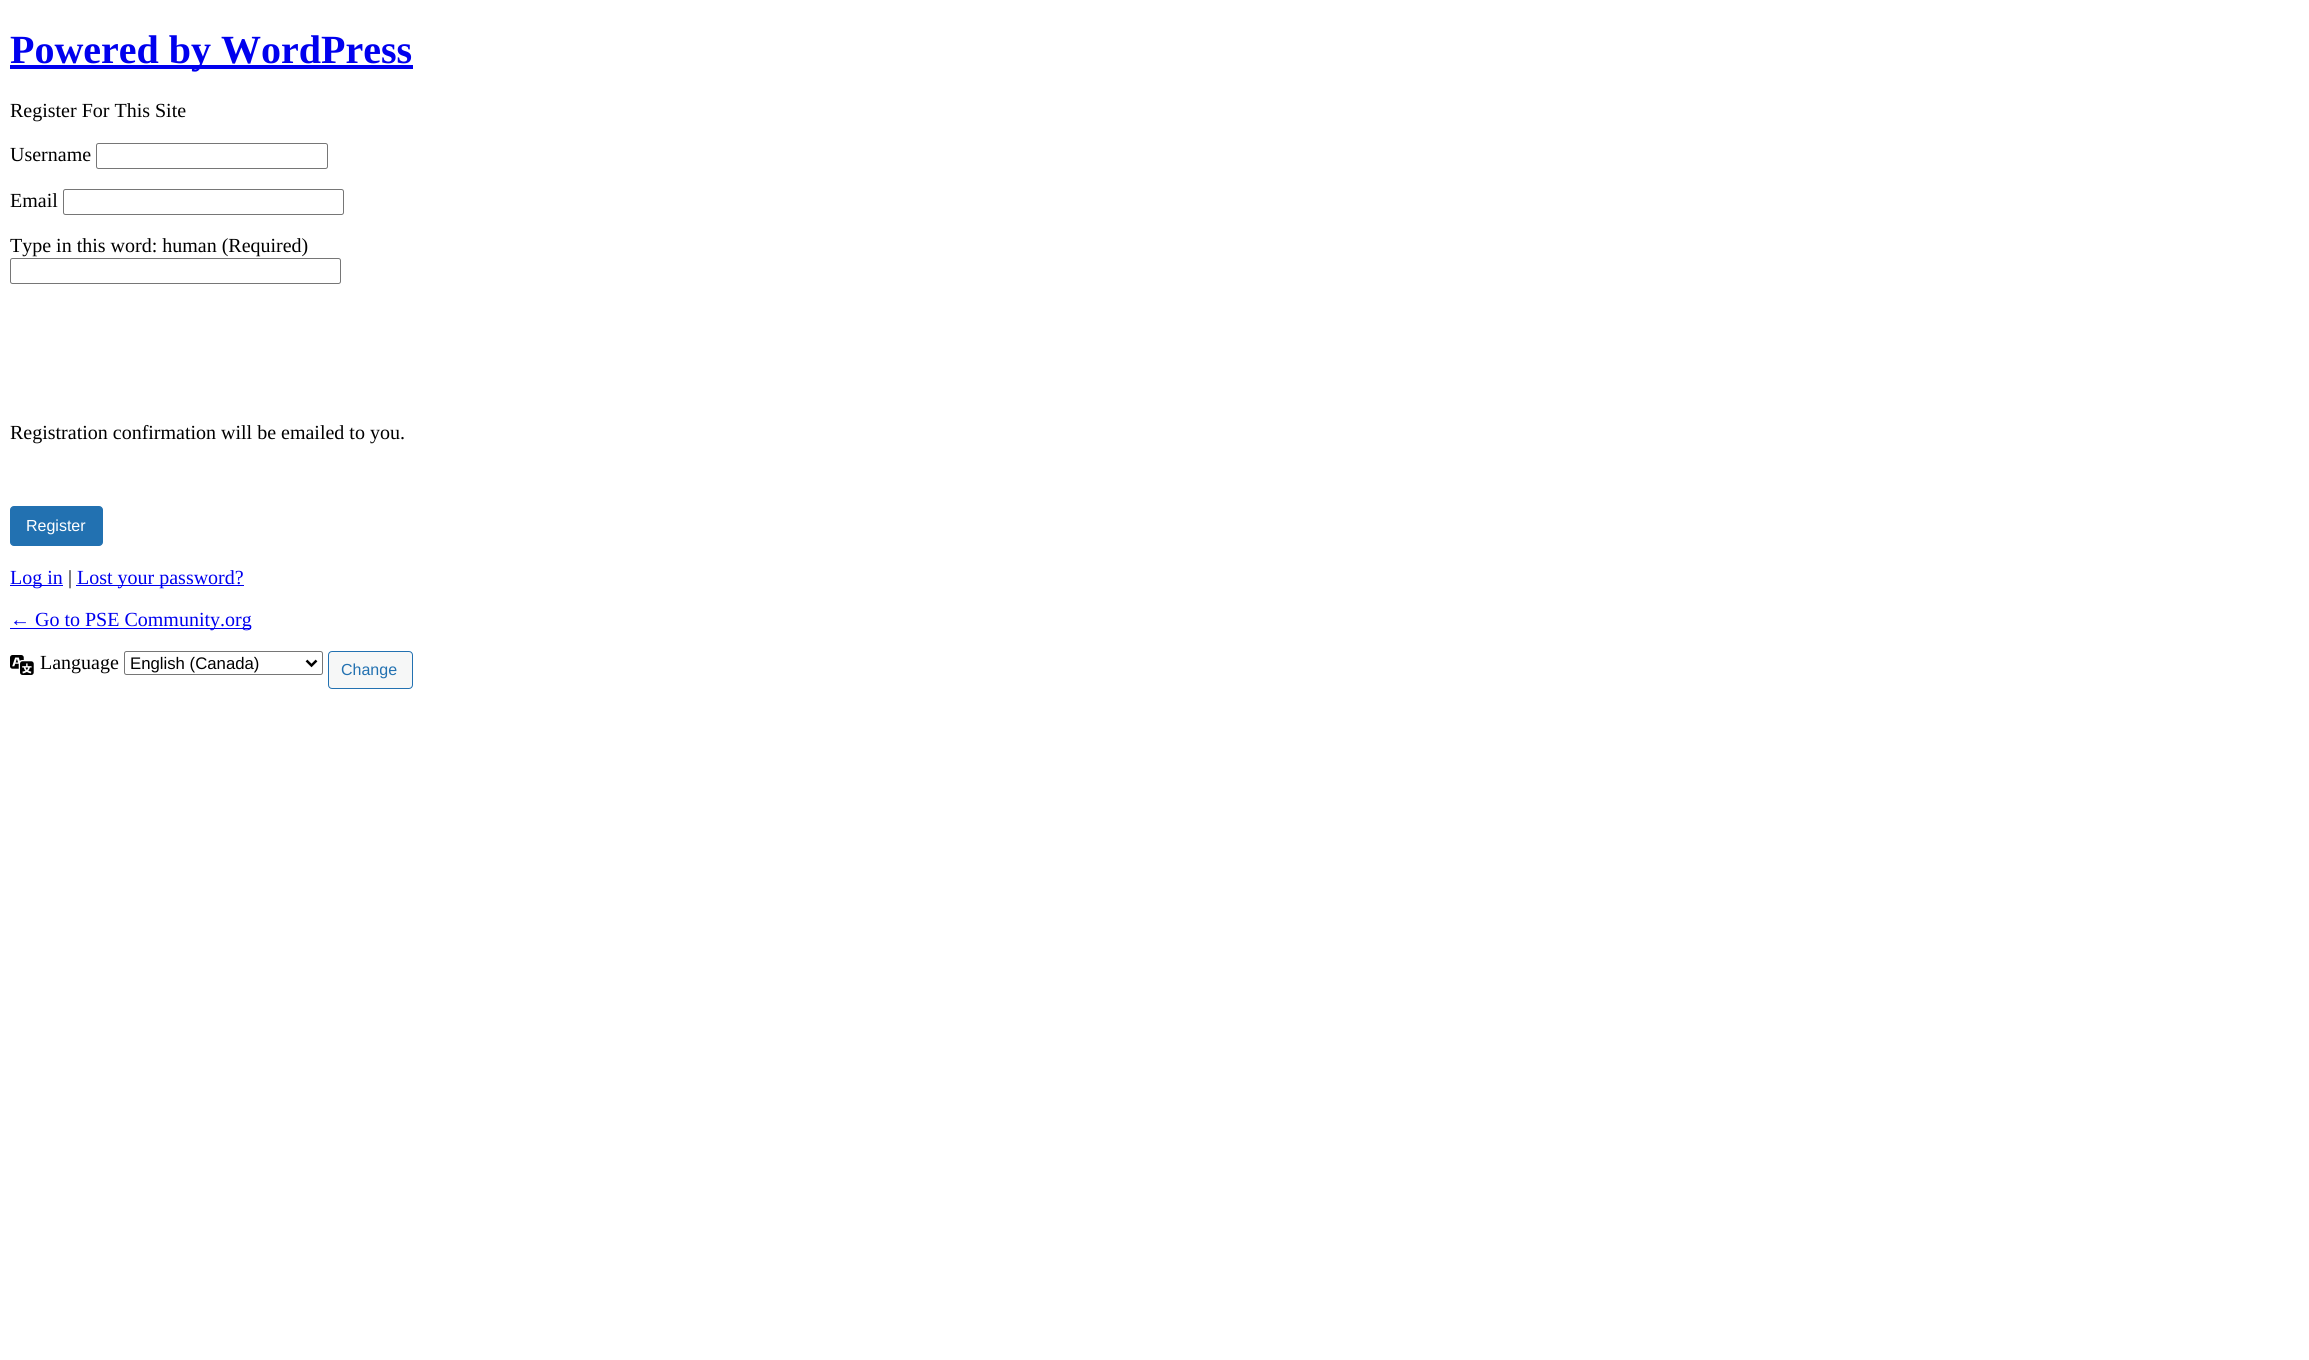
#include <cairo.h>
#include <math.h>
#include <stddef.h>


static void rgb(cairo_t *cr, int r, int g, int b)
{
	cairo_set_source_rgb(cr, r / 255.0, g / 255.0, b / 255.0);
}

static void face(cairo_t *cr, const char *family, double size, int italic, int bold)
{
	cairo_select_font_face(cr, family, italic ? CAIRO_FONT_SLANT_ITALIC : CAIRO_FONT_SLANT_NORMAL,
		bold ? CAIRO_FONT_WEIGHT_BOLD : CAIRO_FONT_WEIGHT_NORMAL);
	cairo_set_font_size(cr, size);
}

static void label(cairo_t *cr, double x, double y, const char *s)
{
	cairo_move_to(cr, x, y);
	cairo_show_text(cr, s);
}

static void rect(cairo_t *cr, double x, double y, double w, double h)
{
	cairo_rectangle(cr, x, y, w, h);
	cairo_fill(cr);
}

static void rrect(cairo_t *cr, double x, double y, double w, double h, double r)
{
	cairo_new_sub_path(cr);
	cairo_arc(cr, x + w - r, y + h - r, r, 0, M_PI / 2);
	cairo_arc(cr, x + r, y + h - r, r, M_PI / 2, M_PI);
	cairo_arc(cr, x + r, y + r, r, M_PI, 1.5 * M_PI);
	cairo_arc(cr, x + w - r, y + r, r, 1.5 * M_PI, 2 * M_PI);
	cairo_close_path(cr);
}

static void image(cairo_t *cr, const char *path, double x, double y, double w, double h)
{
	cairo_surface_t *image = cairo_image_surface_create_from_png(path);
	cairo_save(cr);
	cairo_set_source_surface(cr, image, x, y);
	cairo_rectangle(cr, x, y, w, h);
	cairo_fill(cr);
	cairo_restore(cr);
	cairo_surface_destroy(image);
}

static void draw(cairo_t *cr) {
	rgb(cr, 255, 255, 255);
	cairo_paint(cr);
	rgb(cr, 0, 0, 238);
	rect(cr, 10, 65, 403, 4);
	face(cr, "Liberation Serif", 40, 0, 1);
	label(cr, 10, 63, "Powered by WordPress");
	face(cr, "Liberation Serif", 20, 0, 0);
	rgb(cr, 0, 0, 0);
	label(cr, 10, 117, "Register For This Site");
	label(cr, 10, 161, "Username");
	rrect(cr, 96.5, 143.5, 231, 25, 2);
	rgb(cr, 118, 118, 118);
	cairo_set_line_width(cr, 1);
	cairo_stroke(cr);
	rgb(cr, 0, 0, 0);
	label(cr, 10, 207, "Email");
	rrect(cr, 63.5, 189.5, 280, 25, 2);
	rgb(cr, 118, 118, 118);
	cairo_stroke(cr);
	rgb(cr, 0, 0, 0);
	label(cr, 10, 252, "Type in this word: human (Required)");
	rrect(cr, 10.5, 258.5, 330, 25, 2);
	rgb(cr, 118, 118, 118);
	cairo_stroke(cr);
	rgb(cr, 0, 0, 0);
	label(cr, 10, 439, "Registration confirmation will be emailed to you.");
	rgb(cr, 34, 113, 177);
	rrect(cr, 10.5, 506.5, 92, 39, 3.5);
	cairo_fill_preserve(cr);
	cairo_stroke(cr);
	face(cr, "Liberation Sans", 16, 0, 0);
	rgb(cr, 255, 255, 255);
	label(cr, 26, 531, "Register");
	rgb(cr, 0, 0, 238);
	rect(cr, 10, 585, 53, 1);
	face(cr, "Liberation Serif", 20, 0, 0);
	label(cr, 10, 584, "Log in");
	rgb(cr, 0, 0, 0);
	label(cr, 68, 584, "|");
	rgb(cr, 0, 0, 238);
	rect(cr, 76, 585, 168, 1);
	label(cr, 77, 584, "Lost your password?");
	rect(cr, 10, 628, 241, 1);
	label(cr, 10, 626, "← Go to PSE Community.org");
	image(cr, "image0.png", 10, 655, 24, 20);
	rgb(cr, 0, 0, 0);
	label(cr, 40, 669, "Language");
	rrect(cr, 124.5, 651.5, 198, 23, 2);
	rgb(cr, 118, 118, 118);
	cairo_stroke(cr);
	cairo_new_path(cr);
	cairo_move_to(cr, 306.5, 660.5);
	cairo_line_to(cr, 311.5, 665.5);
	cairo_line_to(cr, 316.5, 660.5);
	rgb(cr, 0, 0, 0);
	cairo_set_line_width(cr, 2.5);
	cairo_stroke(cr);
	face(cr, "Liberation Sans", 16.75, 0, 0);
	label(cr, 130, 669, "English (Canada)");
	rgb(cr, 246, 247, 247);
	rrect(cr, 328.5, 651.5, 84, 37, 3.5);
	cairo_fill_preserve(cr);
	rgb(cr, 34, 113, 177);
	cairo_set_line_width(cr, 1);
	cairo_stroke(cr);
	face(cr, "Liberation Sans", 16, 0, 0);
	label(cr, 341, 675, "Change");
}

int main(void) {
	cairo_surface_t *surface = cairo_image_surface_create(CAIRO_FORMAT_RGB24, 2309, 1360);
	cairo_t *cr = cairo_create(surface);
	cairo_font_options_t *options = cairo_font_options_create();
	cairo_font_options_set_hint_metrics(options, CAIRO_HINT_METRICS_OFF);
	cairo_font_options_set_hint_style(options, CAIRO_HINT_STYLE_NONE);
	cairo_set_font_options(cr, options);
	cairo_set_miter_limit(cr, 4);
	draw(cr);
	cairo_surface_write_to_png(surface, "render.png");
	cairo_font_options_destroy(options);
	cairo_destroy(cr);
	cairo_surface_destroy(surface);
	return 0;
}
